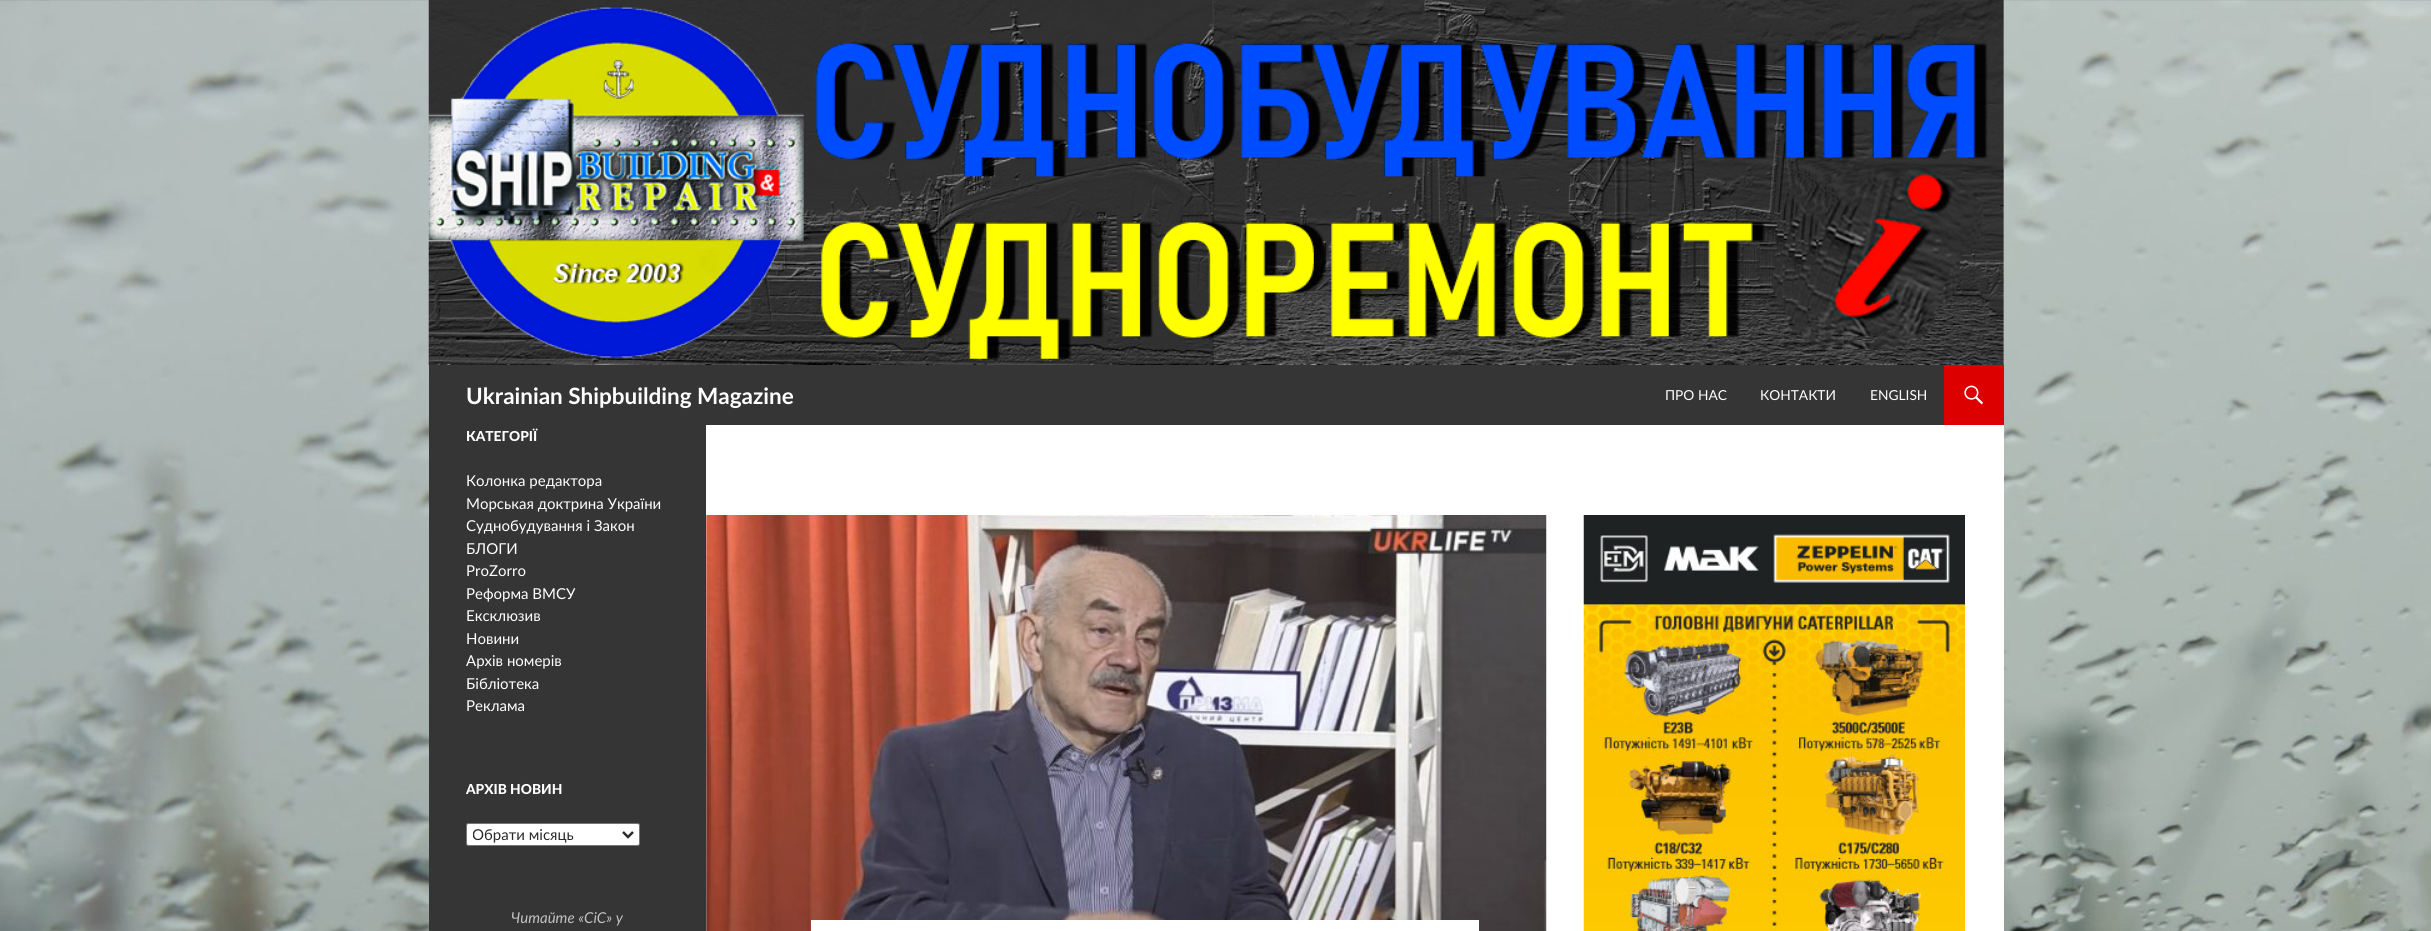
#include <cairo.h>
#include <math.h>
#include <stddef.h>


static void rgb(cairo_t *cr, int r, int g, int b)
{
	cairo_set_source_rgb(cr, r / 255.0, g / 255.0, b / 255.0);
}

static void face(cairo_t *cr, const char *family, double size, int italic, int bold)
{
	cairo_select_font_face(cr, family, italic ? CAIRO_FONT_SLANT_ITALIC : CAIRO_FONT_SLANT_NORMAL,
		bold ? CAIRO_FONT_WEIGHT_BOLD : CAIRO_FONT_WEIGHT_NORMAL);
	cairo_set_font_size(cr, size);
}

static void label(cairo_t *cr, double x, double y, const char *s)
{
	cairo_move_to(cr, x, y);
	cairo_show_text(cr, s);
}

static void rect(cairo_t *cr, double x, double y, double w, double h)
{
	cairo_rectangle(cr, x, y, w, h);
	cairo_fill(cr);
}

static void rrect(cairo_t *cr, double x, double y, double w, double h, double r)
{
	cairo_new_sub_path(cr);
	cairo_arc(cr, x + w - r, y + h - r, r, 0, M_PI / 2);
	cairo_arc(cr, x + r, y + h - r, r, M_PI / 2, M_PI);
	cairo_arc(cr, x + r, y + r, r, M_PI, 1.5 * M_PI);
	cairo_arc(cr, x + w - r, y + r, r, 1.5 * M_PI, 2 * M_PI);
	cairo_close_path(cr);
}

static void image(cairo_t *cr, const char *path, double x, double y, double w, double h)
{
	cairo_surface_t *image = cairo_image_surface_create_from_png(path);
	cairo_save(cr);
	cairo_set_source_surface(cr, image, x, y);
	cairo_rectangle(cr, x, y, w, h);
	cairo_fill(cr);
	cairo_restore(cr);
	cairo_surface_destroy(image);
}

static void draw(cairo_t *cr) {
	rgb(cr, 255, 255, 255);
	cairo_paint(cr);
	image(cr, "image0.png", 0, 0, 2431, 931);
	rgb(cr, 255, 255, 255);
	rect(cr, 706, 0, 1298, 931);
	image(cr, "image1.png", 428, 0, 1576, 365);
	rgb(cr, 53, 53, 53);
	rect(cr, 429, 365, 1515, 60);
	face(cr, "Lato", 22.5, 0, 1);
	rgb(cr, 255, 255, 255);
	label(cr, 466, 404, "Ukrainian Shipbuilding Magazine");
	face(cr, "Lato", 13.75, 0, 0);
	label(cr, 1665, 400, "ПРО НАС");
	label(cr, 1760, 400, "КОНТАКТИ");
	label(cr, 1870, 400, "ENGLISH");
	rgb(cr, 221, 0, 0);
	rect(cr, 1944, 365, 60, 60);
	image(cr, "image2.png", 1964, 385, 19, 20);
	rgb(cr, 53, 53, 53);
	rect(cr, 429, 425, 277, 506);
	face(cr, "Lato Black", 13.75, 0, 0);
	rgb(cr, 255, 255, 255);
	label(cr, 466, 441, "КАТЕГОРІЇ");
	face(cr, "Lato", 15, 0, 0);
	label(cr, 466, 486, "Колонка редактора");
	label(cr, 466, 509, "Морськая доктрина України");
	label(cr, 466, 531, "Суднобудування і Закон");
	label(cr, 466, 554, "БЛОГИ");
	label(cr, 466, 576, "ProZorro");
	label(cr, 466, 599, "Реформа ВМСУ");
	label(cr, 466, 621, "Ексклюзив");
	label(cr, 466, 644, "Новини");
	label(cr, 466, 666, "Архів номерів");
	label(cr, 466, 689, "Бібліотека");
	label(cr, 466, 711, "Реклама");
	face(cr, "Lato Black", 13.75, 0, 0);
	label(cr, 466, 794, "АРХІВ НОВИН");
	rrect(cr, 466.5, 823.5, 173, 22, 2);
	cairo_fill_preserve(cr);
	rgb(cr, 118, 118, 118);
	cairo_set_line_width(cr, 1);
	cairo_stroke(cr);
	cairo_new_path(cr);
	cairo_move_to(cr, 623, 832);
	cairo_line_to(cr, 628, 837);
	cairo_line_to(cr, 633, 832);
	rgb(cr, 43, 43, 43);
	cairo_set_line_width(cr, 2.5);
	cairo_stroke(cr);
	cairo_save(cr);
	cairo_rectangle(cr, 473, 824, 146, 21);
	cairo_clip(cr);
	face(cr, "Lato", 15, 0, 0);
	label(cr, 472, 840, "Обрати місяць");
	cairo_restore(cr);
	face(cr, "Lato", 15, 1, 0);
	rgb(cr, 194, 194, 194);
	label(cr, 511, 923, "Читайте «СіС» у");
	image(cr, "image3.png", 706, 515, 1, 416);
	image(cr, "image4.png", 706, 515, 841, 416);
	rgb(cr, 255, 255, 255);
	rect(cr, 811, 920, 668, 11);
	image(cr, "image5.png", 1583, 515, 382, 416);
}

int main(void) {
	cairo_surface_t *surface = cairo_image_surface_create(CAIRO_FORMAT_RGB24, 2431, 931);
	cairo_t *cr = cairo_create(surface);
	cairo_font_options_t *options = cairo_font_options_create();
	cairo_font_options_set_hint_metrics(options, CAIRO_HINT_METRICS_OFF);
	cairo_font_options_set_hint_style(options, CAIRO_HINT_STYLE_NONE);
	cairo_set_font_options(cr, options);
	cairo_set_miter_limit(cr, 4);
	draw(cr);
	cairo_surface_write_to_png(surface, "render.png");
	cairo_font_options_destroy(options);
	cairo_destroy(cr);
	cairo_surface_destroy(surface);
	return 0;
}
